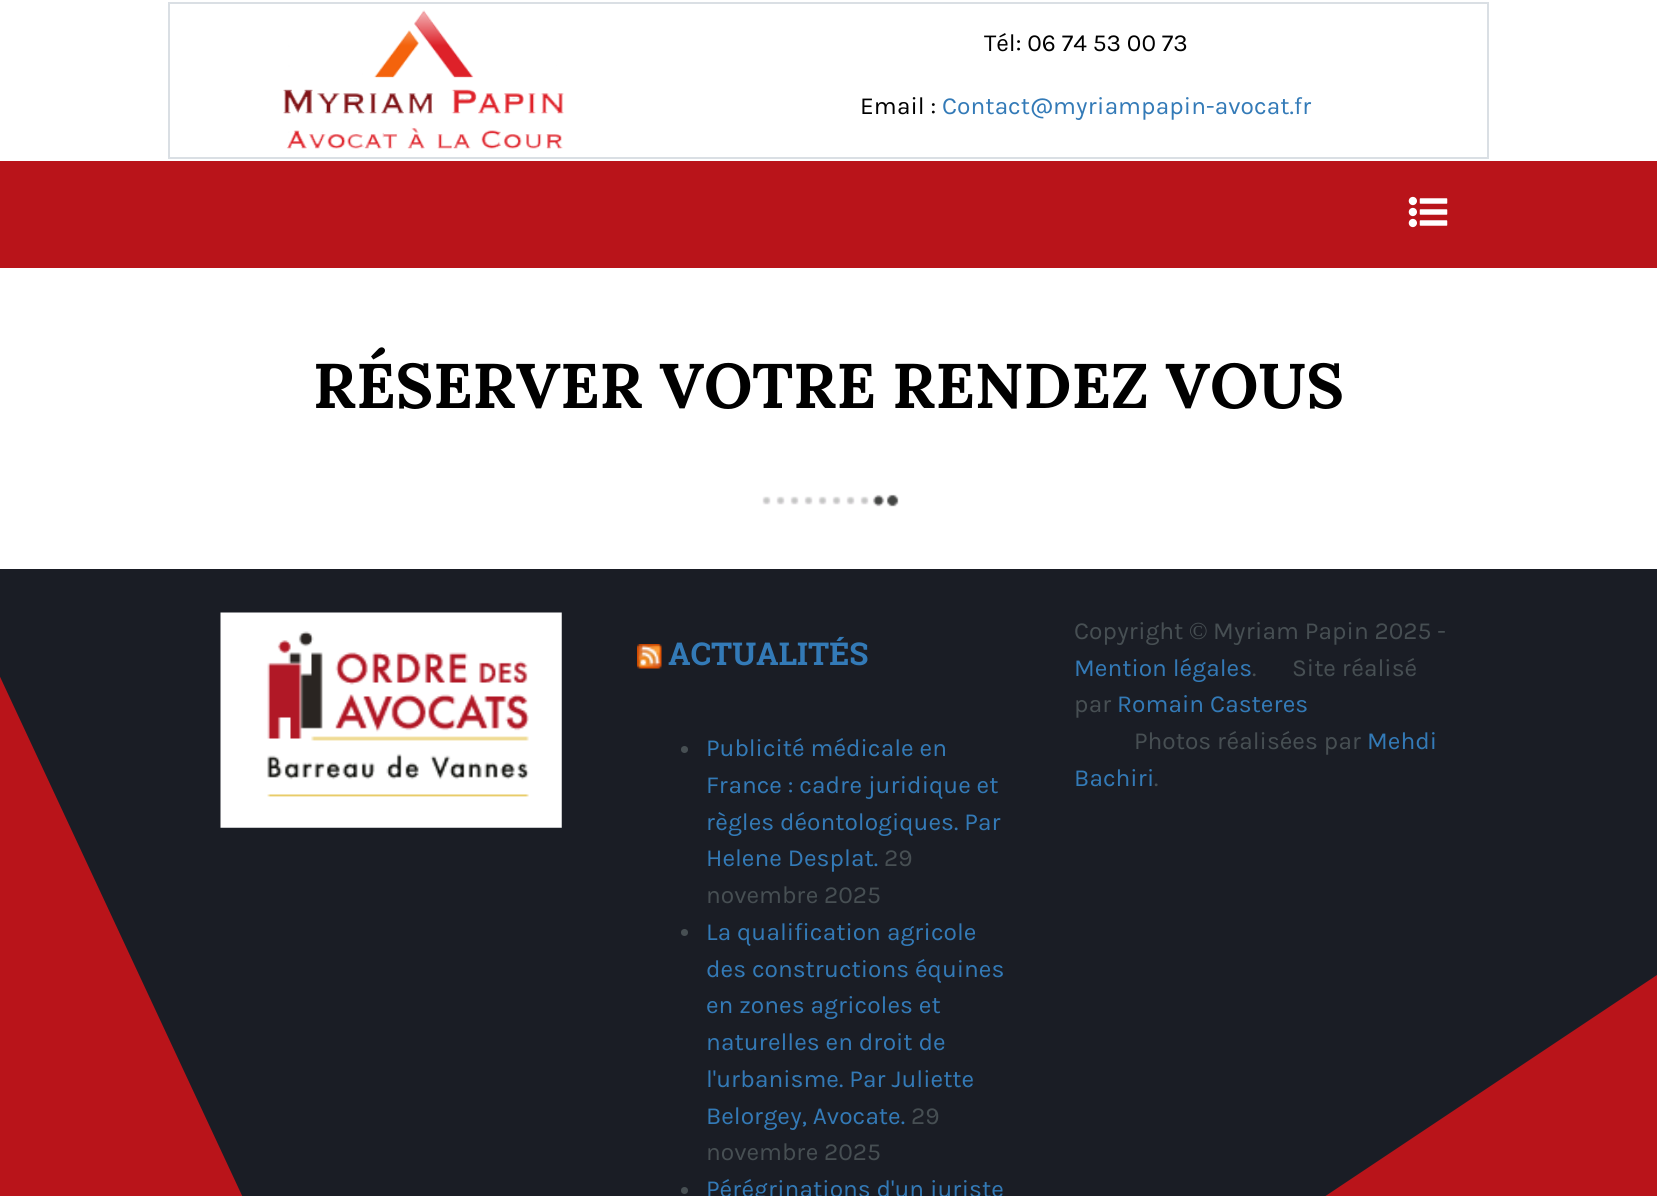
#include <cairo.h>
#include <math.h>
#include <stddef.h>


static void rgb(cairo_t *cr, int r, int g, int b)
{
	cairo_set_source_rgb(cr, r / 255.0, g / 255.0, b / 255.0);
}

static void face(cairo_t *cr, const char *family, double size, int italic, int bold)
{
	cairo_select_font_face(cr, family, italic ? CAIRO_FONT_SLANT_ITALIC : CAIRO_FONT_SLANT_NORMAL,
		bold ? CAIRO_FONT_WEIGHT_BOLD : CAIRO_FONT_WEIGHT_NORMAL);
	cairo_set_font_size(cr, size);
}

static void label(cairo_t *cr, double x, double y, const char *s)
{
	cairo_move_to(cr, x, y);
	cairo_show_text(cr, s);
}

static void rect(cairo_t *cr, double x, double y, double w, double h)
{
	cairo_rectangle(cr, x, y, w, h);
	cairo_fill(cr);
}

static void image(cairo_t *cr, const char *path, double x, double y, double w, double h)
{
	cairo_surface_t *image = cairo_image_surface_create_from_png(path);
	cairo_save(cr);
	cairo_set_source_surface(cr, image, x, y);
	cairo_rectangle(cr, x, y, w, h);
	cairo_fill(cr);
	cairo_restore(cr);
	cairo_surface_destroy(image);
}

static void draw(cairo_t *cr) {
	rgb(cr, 255, 255, 255);
	cairo_paint(cr);
	cairo_rectangle(cr, 169, 3, 1319, 155);
	rgb(cr, 218, 223, 228);
	cairo_stroke(cr);
	image(cr, "image0.png", 283, 10, 281, 139);
	face(cr, "Karla", 24.5, 0, 0);
	rgb(cr, 0, 0, 0);
	label(cr, 984, 51, "Tél: 06 74 53 00 73");
	label(cr, 860, 114, "Email :");
	rgb(cr, 51, 122, 183);
	label(cr, 942, 114, "Contact@myriampapin-avocat.fr");
	rgb(cr, 185, 20, 26);
	rect(cr, 0, 161, 1657, 107);
	image(cr, "image1.png", 1408, 196, 40, 32);
	face(cr, "Lora", 63, 0, 1);
	rgb(cr, 0, 0, 0);
	label(cr, 313, 408, "RÉSERVER VOTRE RENDEZ VOUS");
	image(cr, "image2.png", 762, 494, 137, 13);
	rgb(cr, 26, 29, 37);
	rect(cr, 0, 569, 1657, 627);
	rgb(cr, 185, 20, 26);
	cairo_new_path(cr);
	cairo_move_to(cr, -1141, 371);
	cairo_line_to(cr, -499, -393);
	cairo_line_to(cr, 412, 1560);
	cairo_line_to(cr, -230, 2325);
	cairo_close_path(cr);
	cairo_fill(cr);
	image(cr, "image3.png", 220, 612, 342, 216);
	image(cr, "image4.png", 637, 644, 25, 25);
	face(cr, "Roboto Slab", 31.5, 0, 1);
	rgb(cr, 51, 122, 183);
	label(cr, 668, 665, "ACTUALITÉS");
	rgb(cr, 71, 79, 83);
	cairo_new_path(cr);
	cairo_arc(cr, 684.5, 749.5, 3.5, 0, 2 * M_PI);
	cairo_fill(cr);
	face(cr, "Karla", 24.5, 0, 0);
	rgb(cr, 51, 122, 183);
	label(cr, 706, 756, "Publicité médicale en");
	label(cr, 706, 793, "France : cadre juridique et");
	label(cr, 706, 830, "règles déontologiques. Par");
	label(cr, 706, 866, "Helene Desplat.");
	rgb(cr, 71, 79, 83);
	label(cr, 884, 866, "29");
	label(cr, 706, 903, "novembre 2025");
	cairo_new_path(cr);
	cairo_arc(cr, 684.5, 932.5, 3.5, 0, 2 * M_PI);
	cairo_fill(cr);
	rgb(cr, 51, 122, 183);
	label(cr, 706, 940, "La qualification agricole");
	label(cr, 706, 977, "des constructions équines");
	label(cr, 706, 1013, "en zones agricoles et");
	label(cr, 706, 1050, "naturelles en droit de");
	label(cr, 706, 1087, "l'urbanisme. Par Juliette");
	label(cr, 706, 1124, "Belorgey, Avocate.");
	rgb(cr, 71, 79, 83);
	label(cr, 911, 1124, "29");
	label(cr, 706, 1160, "novembre 2025");
	cairo_new_path(cr);
	cairo_arc(cr, 684.5, 1190.5, 3.5, 0, 2 * M_PI);
	cairo_fill(cr);
	rgb(cr, 51, 122, 183);
	label(cr, 706, 1197, "Pérégrinations d'un juriste");
	rgb(cr, 71, 79, 83);
	label(cr, 1074, 639, "Copyright");
	face(cr, "Liberation Serif", 24.5, 0, 0);
	label(cr, 1189, 639, "©");
	face(cr, "Karla", 24.5, 0, 0);
	label(cr, 1213, 639, "Myriam Papin 2025 -");
	rgb(cr, 51, 122, 183);
	label(cr, 1074, 676, "Mention légales");
	rgb(cr, 71, 79, 83);
	label(cr, 1252, 676, ".");
	label(cr, 1292, 676, "Site réalisé");
	label(cr, 1074, 712, "par");
	rgb(cr, 51, 122, 183);
	label(cr, 1117, 712, "Romain Casteres");
	rgb(cr, 71, 79, 83);
	label(cr, 1134, 749, "Photos réalisées par");
	rgb(cr, 51, 122, 183);
	label(cr, 1367, 749, "Mehdi");
	label(cr, 1074, 786, "Bachiri");
	rgb(cr, 71, 79, 83);
	label(cr, 1154, 786, ".");
	rgb(cr, 185, 20, 26);
	cairo_new_path(cr);
	cairo_move_to(cr, 1657, 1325);
	cairo_line_to(cr, 1132, 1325);
	cairo_line_to(cr, 1657, 975);
	cairo_close_path(cr);
	cairo_fill(cr);
}

int main(void) {
	cairo_surface_t *surface = cairo_image_surface_create(CAIRO_FORMAT_RGB24, 1657, 1196);
	cairo_t *cr = cairo_create(surface);
	cairo_font_options_t *options = cairo_font_options_create();
	cairo_font_options_set_hint_metrics(options, CAIRO_HINT_METRICS_OFF);
	cairo_font_options_set_hint_style(options, CAIRO_HINT_STYLE_NONE);
	cairo_set_font_options(cr, options);
	cairo_set_miter_limit(cr, 4);
	draw(cr);
	cairo_surface_write_to_png(surface, "render.png");
	cairo_font_options_destroy(options);
	cairo_destroy(cr);
	cairo_surface_destroy(surface);
	return 0;
}
